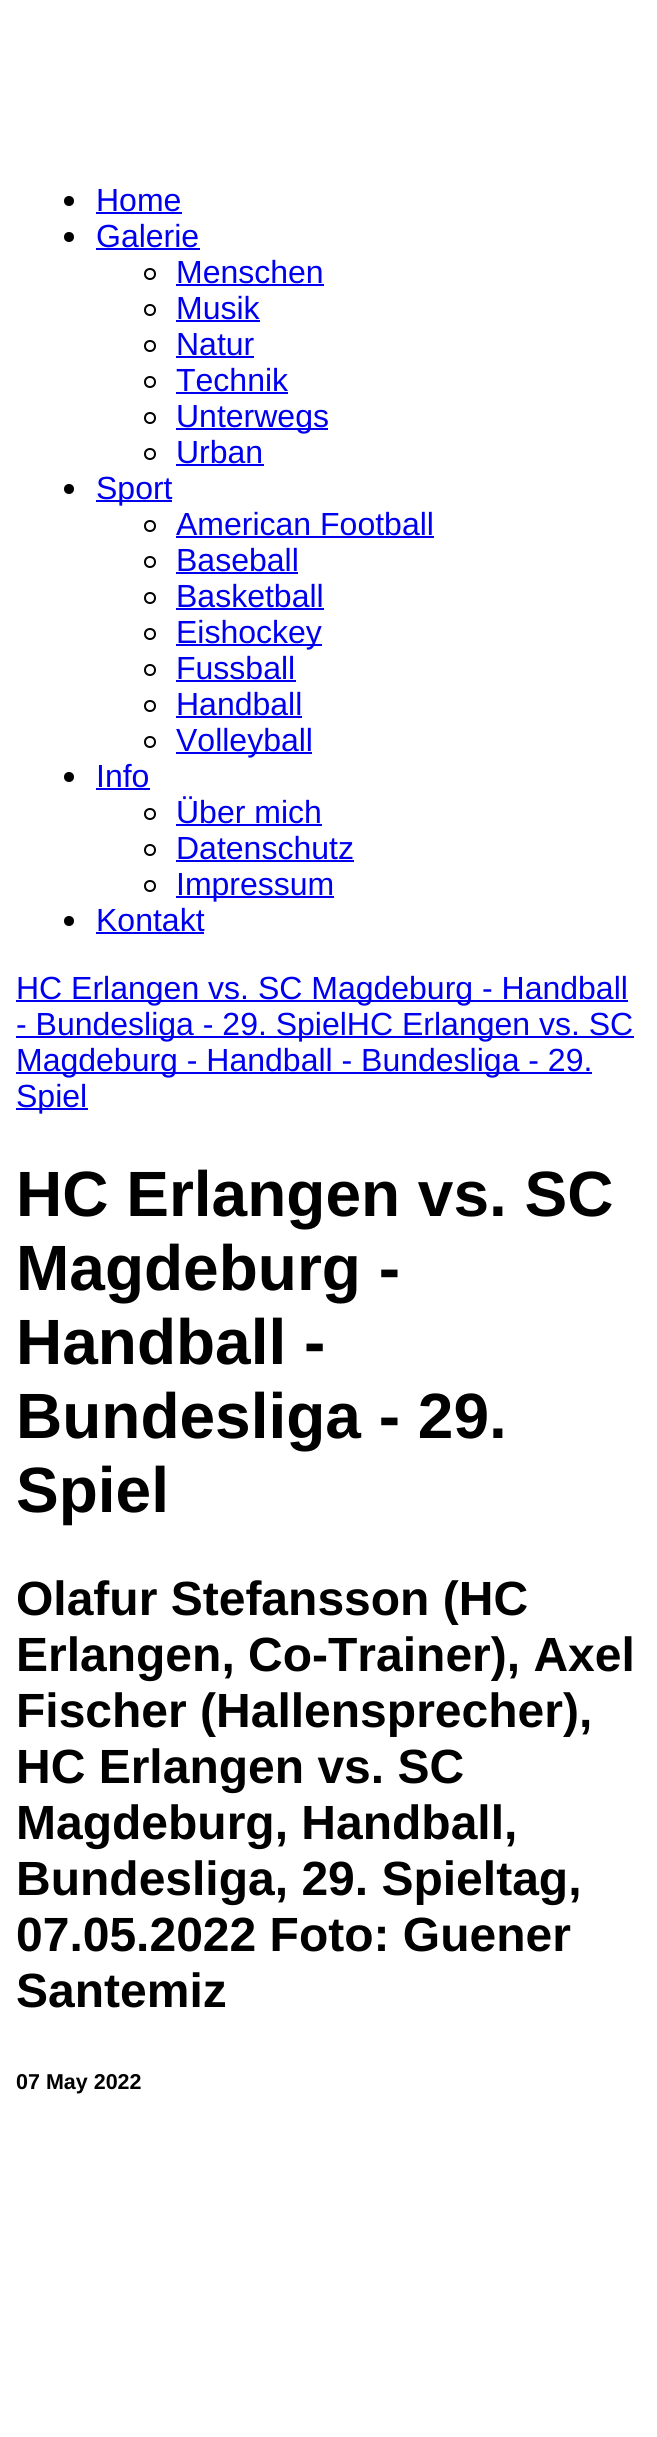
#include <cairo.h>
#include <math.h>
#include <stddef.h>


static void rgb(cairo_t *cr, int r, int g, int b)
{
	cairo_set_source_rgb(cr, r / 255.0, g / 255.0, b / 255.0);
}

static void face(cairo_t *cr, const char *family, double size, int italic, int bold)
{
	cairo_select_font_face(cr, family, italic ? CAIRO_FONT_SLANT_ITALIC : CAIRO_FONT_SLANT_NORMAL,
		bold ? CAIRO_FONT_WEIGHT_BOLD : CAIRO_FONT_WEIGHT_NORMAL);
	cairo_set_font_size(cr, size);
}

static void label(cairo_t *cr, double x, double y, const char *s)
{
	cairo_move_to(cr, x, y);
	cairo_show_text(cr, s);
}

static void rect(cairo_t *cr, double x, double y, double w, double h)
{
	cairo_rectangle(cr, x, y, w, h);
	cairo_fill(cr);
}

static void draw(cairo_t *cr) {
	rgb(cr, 255, 255, 255);
	cairo_paint(cr);
	rgb(cr, 0, 0, 0);
	cairo_arc(cr, 69, 201, 5, 0, 2 * M_PI);
	cairo_fill(cr);
	face(cr, "Liberation Sans", 32, 0, 0);
	rgb(cr, 0, 0, 238);
	label(cr, 96, 211, "Home");
	rect(cr, 96, 212, 86, 2);
	rgb(cr, 0, 0, 0);
	cairo_new_path(cr);
	cairo_arc(cr, 69, 237, 5, 0, 2 * M_PI);
	cairo_fill(cr);
	rgb(cr, 0, 0, 238);
	label(cr, 96, 247, "Galerie");
	rect(cr, 96, 248, 104, 2);
	cairo_new_path(cr);
	cairo_arc(cr, 150, 274, 5, 0, 2 * M_PI);
	rgb(cr, 0, 0, 0);
	cairo_stroke(cr);
	rgb(cr, 0, 0, 238);
	label(cr, 176, 283, "Menschen");
	rect(cr, 176, 284, 148, 2);
	cairo_new_path(cr);
	cairo_arc(cr, 150, 310, 5, 0, 2 * M_PI);
	rgb(cr, 0, 0, 0);
	cairo_stroke(cr);
	rgb(cr, 0, 0, 238);
	label(cr, 176, 319, "Musik");
	rect(cr, 176, 320, 84, 2);
	cairo_new_path(cr);
	cairo_arc(cr, 150, 346, 5, 0, 2 * M_PI);
	rgb(cr, 0, 0, 0);
	cairo_stroke(cr);
	rgb(cr, 0, 0, 238);
	label(cr, 176, 355, "Natur");
	rect(cr, 176, 356, 78, 2);
	cairo_new_path(cr);
	cairo_arc(cr, 150, 382, 5, 0, 2 * M_PI);
	rgb(cr, 0, 0, 0);
	cairo_stroke(cr);
	rgb(cr, 0, 0, 238);
	label(cr, 176, 391, "Technik");
	rect(cr, 176, 392, 112, 2);
	cairo_new_path(cr);
	cairo_arc(cr, 150, 418, 5, 0, 2 * M_PI);
	rgb(cr, 0, 0, 0);
	cairo_stroke(cr);
	rgb(cr, 0, 0, 238);
	rect(cr, 176, 428, 152, 2);
	label(cr, 176, 427, "Unterwegs");
	cairo_new_path(cr);
	cairo_arc(cr, 150, 454, 5, 0, 2 * M_PI);
	rgb(cr, 0, 0, 0);
	cairo_stroke(cr);
	rgb(cr, 0, 0, 238);
	label(cr, 176, 463, "Urban");
	rect(cr, 176, 464, 88, 2);
	rgb(cr, 0, 0, 0);
	cairo_new_path(cr);
	cairo_arc(cr, 69, 489, 5, 0, 2 * M_PI);
	cairo_fill(cr);
	rgb(cr, 0, 0, 238);
	rect(cr, 96, 500, 76, 2);
	label(cr, 96, 499, "Sport");
	cairo_new_path(cr);
	cairo_arc(cr, 150, 526, 5, 0, 2 * M_PI);
	rgb(cr, 0, 0, 0);
	cairo_stroke(cr);
	rgb(cr, 0, 0, 238);
	label(cr, 176, 535, "American Football");
	rect(cr, 176, 536, 258, 2);
	cairo_new_path(cr);
	cairo_arc(cr, 150, 562, 5, 0, 2 * M_PI);
	rgb(cr, 0, 0, 0);
	cairo_stroke(cr);
	rgb(cr, 0, 0, 238);
	label(cr, 176, 571, "Baseball");
	rect(cr, 176, 572, 122, 2);
	cairo_new_path(cr);
	cairo_arc(cr, 150, 598, 5, 0, 2 * M_PI);
	rgb(cr, 0, 0, 0);
	cairo_stroke(cr);
	rgb(cr, 0, 0, 238);
	label(cr, 176, 607, "Basketball");
	rect(cr, 176, 608, 148, 2);
	cairo_new_path(cr);
	cairo_arc(cr, 150, 634, 5, 0, 2 * M_PI);
	rgb(cr, 0, 0, 0);
	cairo_stroke(cr);
	rgb(cr, 0, 0, 238);
	rect(cr, 176, 644, 146, 2);
	label(cr, 176, 643, "Eishockey");
	cairo_new_path(cr);
	cairo_arc(cr, 150, 670, 5, 0, 2 * M_PI);
	rgb(cr, 0, 0, 0);
	cairo_stroke(cr);
	rgb(cr, 0, 0, 238);
	label(cr, 176, 679, "Fussball");
	rect(cr, 176, 680, 120, 2);
	cairo_new_path(cr);
	cairo_arc(cr, 150, 706, 5, 0, 2 * M_PI);
	rgb(cr, 0, 0, 0);
	cairo_stroke(cr);
	rgb(cr, 0, 0, 238);
	label(cr, 176, 715, "Handball");
	rect(cr, 176, 716, 126, 2);
	cairo_new_path(cr);
	cairo_arc(cr, 150, 742, 5, 0, 2 * M_PI);
	rgb(cr, 0, 0, 0);
	cairo_stroke(cr);
	rgb(cr, 0, 0, 238);
	rect(cr, 176, 752, 136, 2);
	label(cr, 176, 751, "Volleyball");
	rgb(cr, 0, 0, 0);
	cairo_new_path(cr);
	cairo_arc(cr, 69, 777, 5, 0, 2 * M_PI);
	cairo_fill(cr);
	rgb(cr, 0, 0, 238);
	label(cr, 96, 787, "Info");
	rect(cr, 96, 788, 54, 2);
	cairo_new_path(cr);
	cairo_arc(cr, 150, 814, 5, 0, 2 * M_PI);
	rgb(cr, 0, 0, 0);
	cairo_stroke(cr);
	rgb(cr, 0, 0, 238);
	label(cr, 176, 823, "Über mich");
	rect(cr, 176, 824, 146, 2);
	cairo_new_path(cr);
	cairo_arc(cr, 150, 850, 5, 0, 2 * M_PI);
	rgb(cr, 0, 0, 0);
	cairo_stroke(cr);
	rgb(cr, 0, 0, 238);
	label(cr, 176, 859, "Datenschutz");
	rect(cr, 176, 860, 178, 2);
	cairo_new_path(cr);
	cairo_arc(cr, 150, 886, 5, 0, 2 * M_PI);
	rgb(cr, 0, 0, 0);
	cairo_stroke(cr);
	rgb(cr, 0, 0, 238);
	rect(cr, 176, 896, 158, 2);
	label(cr, 176, 895, "Impressum");
	rgb(cr, 0, 0, 0);
	cairo_new_path(cr);
	cairo_arc(cr, 69, 921, 5, 0, 2 * M_PI);
	cairo_fill(cr);
	rgb(cr, 0, 0, 238);
	label(cr, 96, 931, "Kontakt");
	rect(cr, 96, 932, 108, 2);
	rect(cr, 16, 1000, 612, 2);
	label(cr, 16, 999, "HC Erlangen vs. SC Magdeburg - Handball");
	rect(cr, 16, 1036, 618, 2);
	label(cr, 16, 1035, "- Bundesliga - 29. SpielHC Erlangen vs. SC");
	rect(cr, 16, 1072, 576, 2);
	label(cr, 16, 1071, "Magdeburg - Handball - Bundesliga - 29.");
	rect(cr, 16, 1108, 72, 2);
	label(cr, 16, 1107, "Spiel");
	face(cr, "Liberation Sans", 64, 0, 1);
	rgb(cr, 0, 0, 0);
	label(cr, 16, 1216, "HC Erlangen vs. SC");
	label(cr, 16, 1290, "Magdeburg -");
	label(cr, 16, 1364, "Handball -");
	label(cr, 16, 1438, "Bundesliga - 29.");
	label(cr, 16, 1512, "Spiel");
	face(cr, "Liberation Sans", 48, 0, 1);
	label(cr, 16, 1615, "Olafur Stefansson (HC");
	label(cr, 16, 1671, "Erlangen, Co-Trainer), Axel");
	label(cr, 16, 1727, "Fischer (Hallensprecher),");
	label(cr, 16, 1783, "HC Erlangen vs. SC");
	label(cr, 16, 1839, "Magdeburg, Handball,");
	label(cr, 16, 1895, "Bundesliga, 29. Spieltag,");
	label(cr, 16, 1951, "07.05.2022 Foto: Guener");
	label(cr, 16, 2007, "Santemiz");
	face(cr, "Liberation Sans", 21.5, 0, 1);
	label(cr, 16, 2089, "07 May 2022");
}

int main(void) {
	cairo_surface_t *surface = cairo_image_surface_create(CAIRO_FORMAT_RGB24, 657, 2437);
	cairo_t *cr = cairo_create(surface);
	cairo_font_options_t *options = cairo_font_options_create();
	cairo_font_options_set_hint_metrics(options, CAIRO_HINT_METRICS_OFF);
	cairo_font_options_set_hint_style(options, CAIRO_HINT_STYLE_NONE);
	cairo_set_font_options(cr, options);
	cairo_set_miter_limit(cr, 4);
	draw(cr);
	cairo_surface_write_to_png(surface, "render.png");
	cairo_font_options_destroy(options);
	cairo_destroy(cr);
	cairo_surface_destroy(surface);
	return 0;
}
